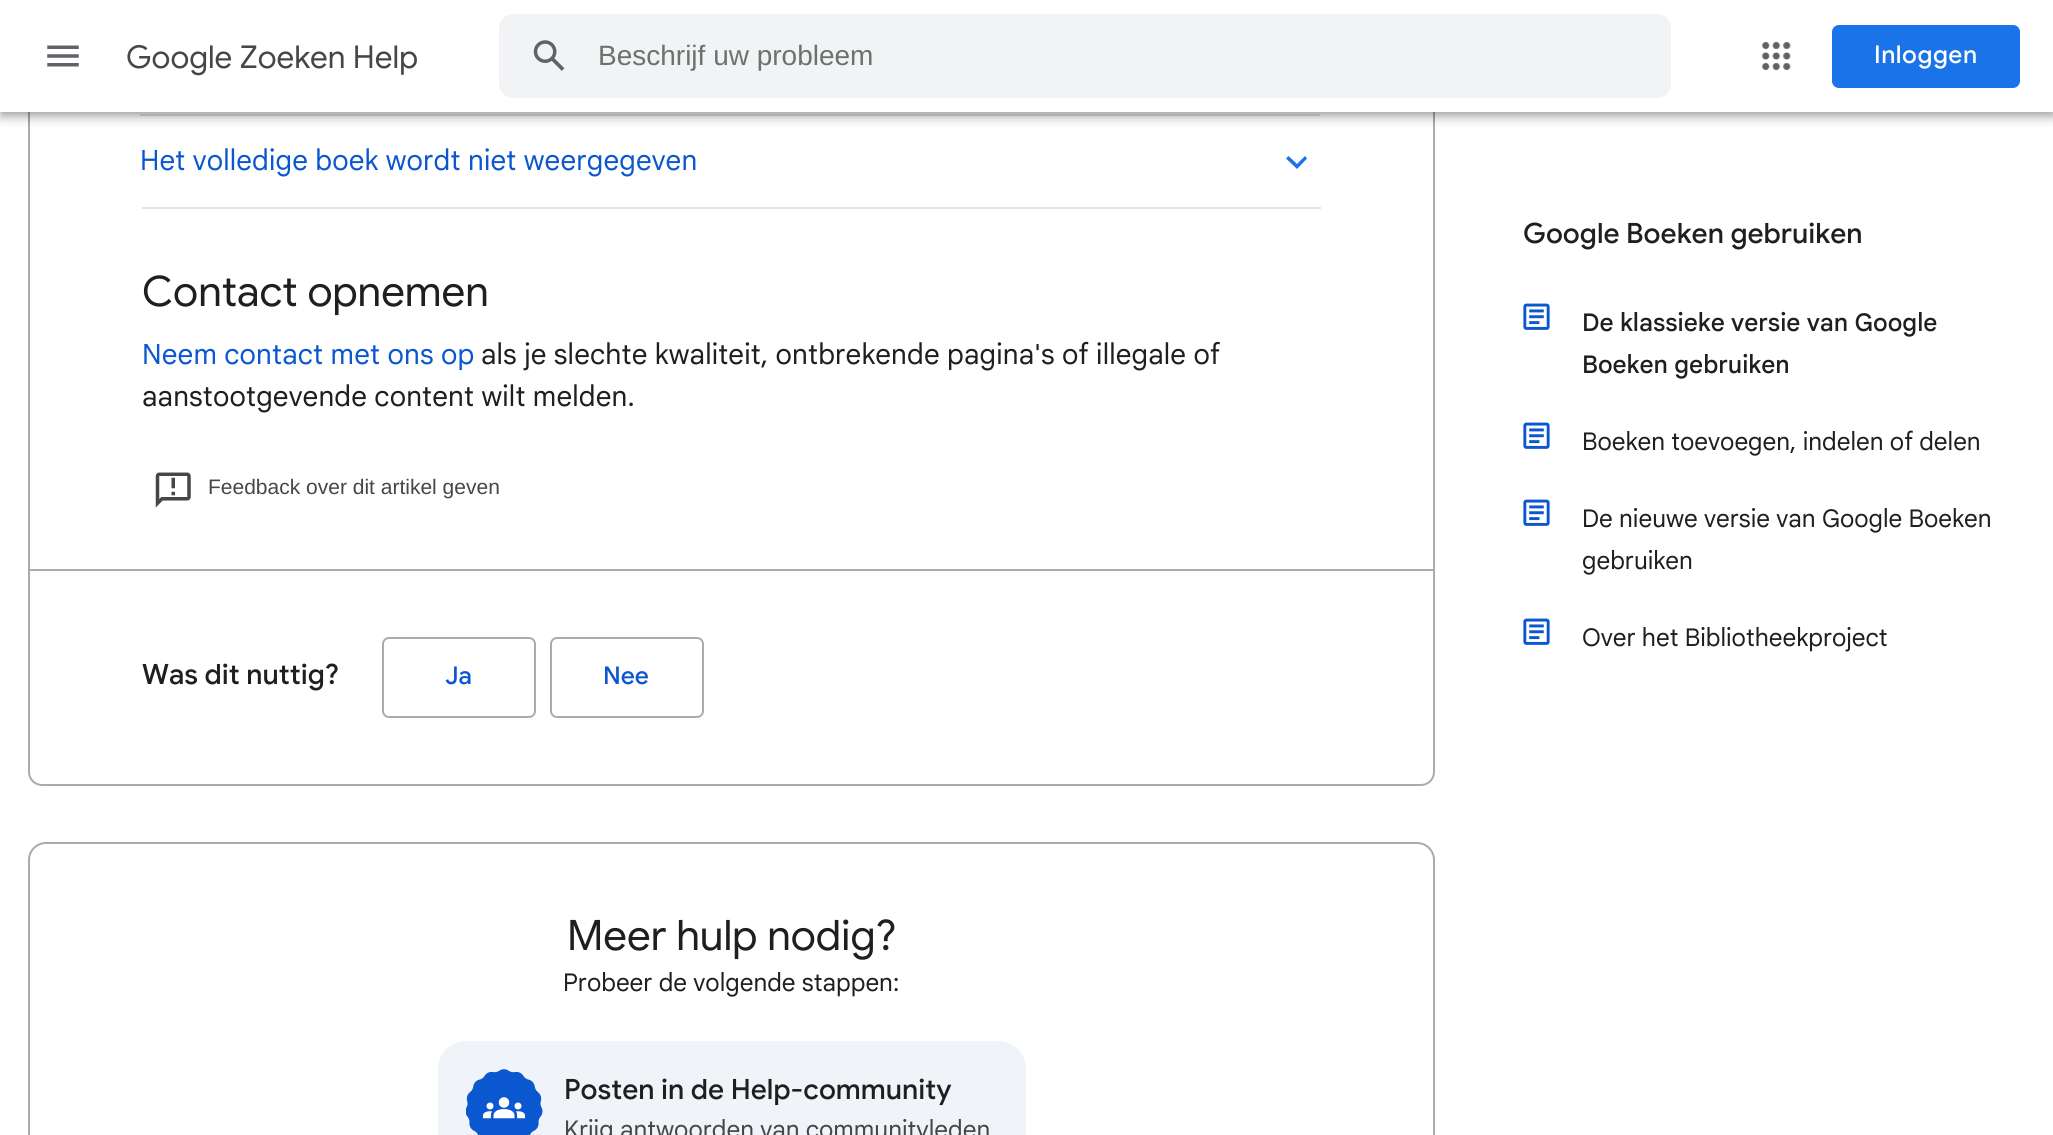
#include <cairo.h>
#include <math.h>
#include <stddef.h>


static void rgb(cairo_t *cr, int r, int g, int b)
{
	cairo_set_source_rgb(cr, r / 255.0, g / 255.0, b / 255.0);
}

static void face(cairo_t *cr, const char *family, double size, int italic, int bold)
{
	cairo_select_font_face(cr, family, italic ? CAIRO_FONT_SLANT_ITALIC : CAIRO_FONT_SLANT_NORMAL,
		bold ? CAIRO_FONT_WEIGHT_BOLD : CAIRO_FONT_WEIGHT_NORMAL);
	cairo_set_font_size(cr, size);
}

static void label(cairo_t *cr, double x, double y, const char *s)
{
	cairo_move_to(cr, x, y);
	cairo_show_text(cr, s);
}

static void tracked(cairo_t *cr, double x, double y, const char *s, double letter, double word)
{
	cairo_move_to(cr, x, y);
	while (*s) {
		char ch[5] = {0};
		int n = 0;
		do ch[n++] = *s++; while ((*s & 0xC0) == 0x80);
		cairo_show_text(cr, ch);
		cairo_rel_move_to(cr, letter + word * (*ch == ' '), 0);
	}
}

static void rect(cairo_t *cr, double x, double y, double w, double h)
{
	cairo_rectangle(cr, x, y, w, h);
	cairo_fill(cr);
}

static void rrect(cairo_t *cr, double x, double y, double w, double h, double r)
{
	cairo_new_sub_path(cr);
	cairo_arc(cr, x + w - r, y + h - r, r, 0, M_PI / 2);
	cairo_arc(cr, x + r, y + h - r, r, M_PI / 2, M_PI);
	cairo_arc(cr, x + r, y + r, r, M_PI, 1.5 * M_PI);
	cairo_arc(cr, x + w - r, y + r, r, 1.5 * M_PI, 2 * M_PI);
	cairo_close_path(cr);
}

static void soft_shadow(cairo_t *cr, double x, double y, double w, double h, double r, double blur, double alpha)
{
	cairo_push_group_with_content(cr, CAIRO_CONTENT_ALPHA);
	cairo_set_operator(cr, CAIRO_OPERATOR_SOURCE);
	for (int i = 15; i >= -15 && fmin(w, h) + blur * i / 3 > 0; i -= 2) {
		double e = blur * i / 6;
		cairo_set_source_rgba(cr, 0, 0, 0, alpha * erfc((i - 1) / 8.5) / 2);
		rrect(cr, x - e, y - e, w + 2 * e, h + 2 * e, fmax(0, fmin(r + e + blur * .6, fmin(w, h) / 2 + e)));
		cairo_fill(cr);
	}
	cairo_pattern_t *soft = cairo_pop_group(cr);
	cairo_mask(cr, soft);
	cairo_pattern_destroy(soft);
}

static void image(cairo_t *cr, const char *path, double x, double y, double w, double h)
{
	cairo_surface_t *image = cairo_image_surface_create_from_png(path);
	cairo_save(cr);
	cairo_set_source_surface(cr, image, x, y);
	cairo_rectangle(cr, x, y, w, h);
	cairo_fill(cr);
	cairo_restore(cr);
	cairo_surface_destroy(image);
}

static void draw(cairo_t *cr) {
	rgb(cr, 255, 255, 255);
	cairo_paint(cr);
	rrect(cr, 29, -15, 1405, 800, 13);
	rgb(cr, 169, 172, 170);
	cairo_stroke(cr);
	rgb(cr, 225, 227, 225);
	rect(cr, 140, 114, 1180, 2);
	rgb(cr, 0, 0, 0);
	soft_shadow(cr, 2, 5, 2051, 109, 0, 3.5, 0.2);
	soft_shadow(cr, 0, 2, 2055, 112, 0, 9, 0.12);
	soft_shadow(cr, 0, 7, 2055, 112, 0, 4.5, 0.14);
	rgb(cr, 255, 255, 255);
	rect(cr, 0, 0, 2053, 112);
	image(cr, "image0.png", 47, 45, 32, 22);
	face(cr, "Google Sans", 31.5, 0, 0);
	rgb(cr, 68, 71, 70);
	label(cr, 126, 68, "Google Zoeken Help");
	rgb(cr, 241, 243, 244);
	rrect(cr, 499, 14, 1172, 84, 14);
	cairo_fill(cr);
	image(cr, "image1.png", 533, 40, 32, 31);
	face(cr, "Liberation Sans", 28, 0, 0);
	rgb(cr, 111, 112, 112);
	label(cr, 598, 65, "Beschrijf uw probleem");
	image(cr, "image2.png", 1762, 42, 29, 28);
	rgb(cr, 26, 115, 232);
	rrect(cr, 1832, 25, 188, 63, 7);
	cairo_fill(cr);
	face(cr, "Google Sans Medium", 24.5, 0, 0);
	rgb(cr, 255, 255, 255);
	tracked(cr, 1874, 63, "Inloggen", 0.5, 0);
	rgb(cr, 225, 227, 225);
	rect(cr, 142, 207, 1179, 2);
	face(cr, "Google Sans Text", 28, 0, 0);
	rgb(cr, 11, 87, 208);
	tracked(cr, 140, 170, "Het volledige boek wordt niet weergegeven", 0.15, 0);
	rgb(cr, 26, 115, 232);
	cairo_new_path(cr);
	cairo_move_to(cr, 1288.5, 156);
	cairo_line_to(cr, 1297, 164);
	cairo_line_to(cr, 1305, 156);
	cairo_line_to(cr, 1307, 158.5);
	cairo_line_to(cr, 1297, 169);
	cairo_line_to(cr, 1286, 158.5);
	cairo_close_path(cr);
	cairo_fill(cr);
	face(cr, "Google Sans", 42, 0, 0);
	rgb(cr, 31, 31, 31);
	label(cr, 142, 306, "Contact opnemen");
	face(cr, "Google Sans Text", 28, 0, 0);
	rgb(cr, 11, 87, 208);
	tracked(cr, 142, 364, "Neem contact met ons op", 0.15, 0);
	rgb(cr, 31, 31, 31);
	tracked(cr, 481, 364, "als je slechte kwaliteit, ontbrekende pagina's of illegale of", 0.15, 0);
	tracked(cr, 142, 406, "aanstootgevende content wilt melden.", 0.15, 0);
	image(cr, "image3.png", 155, 472, 36, 36);
	face(cr, "Liberation Sans", 21, 0, 0);
	rgb(cr, 68, 71, 70);
	label(cr, 208, 494, "Feedback over dit artikel geven");
	rgb(cr, 169, 172, 170);
	rect(cr, 30, 569, 1403, 2);
	face(cr, "Google Sans Medium", 28, 0, 0);
	rgb(cr, 31, 31, 31);
	label(cr, 142, 684, "Was dit nuttig?");
	rrect(cr, 383, 638, 152, 79, 6);
	rgb(cr, 169, 172, 170);
	cairo_stroke(cr);
	face(cr, "Google Sans Medium", 24.5, 0, 0);
	rgb(cr, 11, 87, 208);
	label(cr, 445, 684, "Ja");
	rrect(cr, 551, 638, 152, 79, 6);
	rgb(cr, 169, 172, 170);
	cairo_stroke(cr);
	rgb(cr, 11, 87, 208);
	label(cr, 603, 684, "Nee");
	rrect(cr, 29, 843, 1405, 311, 17);
	rgb(cr, 169, 172, 170);
	cairo_stroke(cr);
	face(cr, "Google Sans", 42, 0, 0);
	rgb(cr, 31, 31, 31);
	label(cr, 567, 950, "Meer hulp nodig?");
	face(cr, "Google Sans Text", 24.5, 0, 0);
	label(cr, 563, 991, "Probeer de volgende stappen:");
	rgb(cr, 240, 244, 249);
	rrect(cr, 438, 1041, 588, 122, 28);
	cairo_fill(cr);
	image(cr, "image4.png", 466, 1069, 77, 66);
	image(cr, "image5.png", 483, 1097, 42, 22);
	face(cr, "Google Sans Medium", 28, 0, 0);
	rgb(cr, 31, 31, 31);
	label(cr, 564, 1099, "Posten in de Help-community");
	face(cr, "Google Sans Text", 24.5, 0, 0);
	rgb(cr, 68, 71, 70);
	label(cr, 564, 1138, "Krijg antwoorden van communityleden");
	face(cr, "Google Sans Medium", 28, 0, 0);
	rgb(cr, 31, 31, 31);
	label(cr, 1523, 243, "Google Boeken gebruiken");
	image(cr, "image6.png", 1523, 303, 27, 27);
	face(cr, "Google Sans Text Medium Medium", 24.5, 0, 0);
	label(cr, 1582, 331, "De klassieke versie van Google");
	label(cr, 1582, 373, "Boeken gebruiken");
	image(cr, "image6.png", 1523, 422, 27, 27);
	face(cr, "Google Sans Text", 24.5, 0, 0);
	label(cr, 1582, 450, "Boeken toevoegen, indelen of delen");
	image(cr, "image6.png", 1523, 499, 27, 27);
	label(cr, 1582, 527, "De nieuwe versie van Google Boeken");
	label(cr, 1582, 569, "gebruiken");
	image(cr, "image6.png", 1523, 618, 27, 27);
	label(cr, 1582, 646, "Over het Bibliotheekproject");
}

int main(void) {
	cairo_surface_t *surface = cairo_image_surface_create(CAIRO_FORMAT_RGB24, 2053, 1135);
	cairo_t *cr = cairo_create(surface);
	cairo_font_options_t *options = cairo_font_options_create();
	cairo_font_options_set_hint_metrics(options, CAIRO_HINT_METRICS_OFF);
	cairo_font_options_set_hint_style(options, CAIRO_HINT_STYLE_NONE);
	cairo_set_font_options(cr, options);
	cairo_set_miter_limit(cr, 4);
	draw(cr);
	cairo_surface_write_to_png(surface, "render.png");
	cairo_font_options_destroy(options);
	cairo_destroy(cr);
	cairo_surface_destroy(surface);
	return 0;
}
